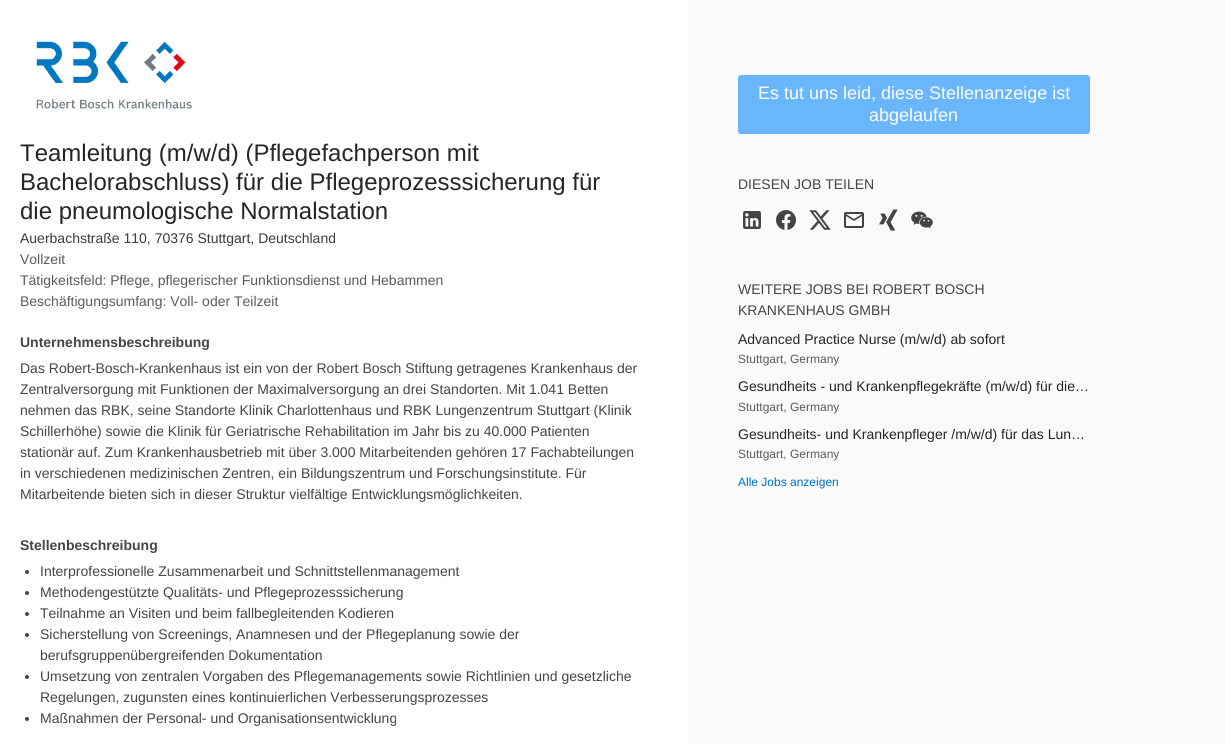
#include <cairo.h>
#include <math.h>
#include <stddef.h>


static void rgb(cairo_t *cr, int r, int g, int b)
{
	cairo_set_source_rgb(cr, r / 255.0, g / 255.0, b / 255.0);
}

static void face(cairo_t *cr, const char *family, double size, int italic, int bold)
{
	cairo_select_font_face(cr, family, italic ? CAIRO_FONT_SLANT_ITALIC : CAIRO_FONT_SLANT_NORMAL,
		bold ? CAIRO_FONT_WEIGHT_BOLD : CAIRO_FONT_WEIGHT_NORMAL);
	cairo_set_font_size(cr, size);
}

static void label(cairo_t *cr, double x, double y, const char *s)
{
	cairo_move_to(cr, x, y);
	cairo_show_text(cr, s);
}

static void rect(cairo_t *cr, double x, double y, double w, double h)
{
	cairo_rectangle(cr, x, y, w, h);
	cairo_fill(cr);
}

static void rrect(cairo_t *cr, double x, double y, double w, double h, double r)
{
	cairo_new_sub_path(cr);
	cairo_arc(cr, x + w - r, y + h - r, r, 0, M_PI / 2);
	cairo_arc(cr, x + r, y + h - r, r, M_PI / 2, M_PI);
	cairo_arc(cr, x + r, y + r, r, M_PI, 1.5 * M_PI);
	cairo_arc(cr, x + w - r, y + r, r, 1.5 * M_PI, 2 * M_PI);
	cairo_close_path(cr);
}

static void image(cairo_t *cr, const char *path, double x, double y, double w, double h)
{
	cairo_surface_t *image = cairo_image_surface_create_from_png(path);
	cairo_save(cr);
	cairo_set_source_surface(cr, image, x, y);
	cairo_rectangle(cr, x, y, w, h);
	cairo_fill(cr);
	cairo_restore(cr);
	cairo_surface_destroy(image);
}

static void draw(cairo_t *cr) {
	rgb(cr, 255, 255, 255);
	cairo_paint(cr);
	image(cr, "image0.png", 35, 40, 160, 70);
	face(cr, "Liberation Sans", 24, 0, 0);
	rgb(cr, 39, 37, 37);
	label(cr, 20, 161, "Teamleitung (m/w/d) (Pflegefachperson mit");
	label(cr, 20, 190, "Bachelorabschluss) für die Pflegeprozesssicherung für");
	label(cr, 20, 219, "die pneumologische Normalstation");
	face(cr, "Liberation Sans", 14, 0, 0);
	rgb(cr, 56, 60, 56);
	label(cr, 20, 243, "Auerbachstraße 110, 70376 Stuttgart, Deutschland");
	rgb(cr, 94, 89, 94);
	label(cr, 20, 264, "Vollzeit");
	label(cr, 20, 285, "Tätigkeitsfeld: Pflege, pflegerischer Funktionsdienst und Hebammen");
	label(cr, 20, 306, "Beschäftigungsumfang: Voll- oder Teilzeit");
	face(cr, "Liberation Sans", 14, 0, 1);
	rgb(cr, 68, 69, 69);
	label(cr, 20, 347, "Unternehmensbeschreibung");
	face(cr, "Liberation Sans", 14, 0, 0);
	label(cr, 20, 373, "Das Robert-Bosch-Krankenhaus ist ein von der Robert Bosch Stiftung getragenes Krankenhaus der");
	label(cr, 20, 394, "Zentralversorgung mit Funktionen der Maximalversorgung an drei Standorten. Mit 1.041 Betten");
	label(cr, 20, 415, "nehmen das RBK, seine Standorte Klinik Charlottenhaus und RBK Lungenzentrum Stuttgart (Klinik");
	label(cr, 20, 436, "Schillerhöhe) sowie die Klinik für Geriatrische Rehabilitation im Jahr bis zu 40.000 Patienten");
	label(cr, 20, 457, "stationär auf. Zum Krankenhausbetrieb mit über 3.000 Mitarbeitenden gehören 17 Fachabteilungen");
	label(cr, 20, 478, "in verschiedenen medizinischen Zentren, ein Bildungszentrum und Forschungsinstitute. Für");
	label(cr, 20, 499, "Mitarbeitende bieten sich in dieser Struktur vielfältige Entwicklungsmöglichkeiten.");
	face(cr, "Liberation Sans", 14, 0, 1);
	label(cr, 20, 550, "Stellenbeschreibung");
	cairo_new_path(cr);
	cairo_arc(cr, 27, 572, 2, 0, 2 * M_PI);
	cairo_fill(cr);
	face(cr, "Liberation Sans", 14, 0, 0);
	label(cr, 40, 576, "Interprofessionelle Zusammenarbeit und Schnittstellenmanagement");
	cairo_new_path(cr);
	cairo_arc(cr, 27, 593, 2, 0, 2 * M_PI);
	cairo_fill(cr);
	label(cr, 40, 597, "Methodengestützte Qualitäts- und Pflegeprozesssicherung");
	cairo_new_path(cr);
	cairo_arc(cr, 27, 614, 2, 0, 2 * M_PI);
	cairo_fill(cr);
	label(cr, 40, 618, "Teilnahme an Visiten und beim fallbegleitenden Kodieren");
	cairo_new_path(cr);
	cairo_arc(cr, 27, 635, 2, 0, 2 * M_PI);
	cairo_fill(cr);
	label(cr, 40, 639, "Sicherstellung von Screenings, Anamnesen und der Pflegeplanung sowie der");
	label(cr, 40, 660, "berufsgruppenübergreifenden Dokumentation");
	cairo_new_path(cr);
	cairo_arc(cr, 27, 677, 2, 0, 2 * M_PI);
	cairo_fill(cr);
	label(cr, 40, 681, "Umsetzung von zentralen Vorgaben des Pflegemanagements sowie Richtlinien und gesetzliche");
	label(cr, 40, 702, "Regelungen, zugunsten eines kontinuierlichen Verbesserungsprozesses");
	cairo_new_path(cr);
	cairo_arc(cr, 27, 719, 2, 0, 2 * M_PI);
	cairo_fill(cr);
	label(cr, 40, 723, "Maßnahmen der Personal- und Organisationsentwicklung");
	rgb(cr, 250, 250, 250);
	rect(cr, 688, 0, 537, 744);
	rgb(cr, 106, 182, 253);
	rrect(cr, 738, 75, 352, 59, 3);
	cairo_fill(cr);
	face(cr, "Liberation Sans", 18, 0, 0);
	rgb(cr, 253, 253, 253);
	label(cr, 758, 99, "Es tut uns leid, diese Stellenanzeige ist");
	label(cr, 869, 121, "abgelaufen");
	face(cr, "Liberation Sans", 14, 0, 0);
	rgb(cr, 68, 69, 69);
	label(cr, 738, 189, "DIESEN JOB TEILEN");
	image(cr, "image1.png", 743, 211, 18, 18);
	image(cr, "image2.png", 776, 210, 20, 20);
	image(cr, "image3.png", 809, 210, 22, 20);
	image(cr, "image4.png", 844, 212, 20, 16);
	image(cr, "image5.png", 879, 209, 19, 22);
	image(cr, "image6.png", 911, 211, 22, 18);
	label(cr, 738, 294, "WEITERE JOBS BEI ROBERT BOSCH");
	label(cr, 738, 315, "KRANKENHAUS GMBH");
	rgb(cr, 39, 37, 37);
	label(cr, 738, 344, "Advanced Practice Nurse (m/w/d) ab sofort");
	face(cr, "Liberation Sans", 12, 0, 0);
	rgb(cr, 94, 89, 94);
	label(cr, 738, 363, "Stuttgart, Germany");
	face(cr, "Liberation Sans", 14, 0, 0);
	rgb(cr, 39, 37, 37);
	label(cr, 738, 391, "Gesundheits - und Krankenpflegekräfte (m/w/d) für die…");
	face(cr, "Liberation Sans", 12, 0, 0);
	rgb(cr, 94, 89, 94);
	label(cr, 738, 411, "Stuttgart, Germany");
	face(cr, "Liberation Sans", 14, 0, 0);
	rgb(cr, 39, 37, 37);
	label(cr, 738, 439, "Gesundheits- und Krankenpfleger /m/w/d) für das Lun…");
	face(cr, "Liberation Sans", 12, 0, 0);
	rgb(cr, 94, 89, 94);
	label(cr, 738, 458, "Stuttgart, Germany");
	rgb(cr, 0, 112, 205);
	label(cr, 738, 486, "Alle Jobs anzeigen");
}

int main(void) {
	cairo_surface_t *surface = cairo_image_surface_create(CAIRO_FORMAT_RGB24, 1225, 744);
	cairo_t *cr = cairo_create(surface);
	cairo_font_options_t *options = cairo_font_options_create();
	cairo_font_options_set_hint_metrics(options, CAIRO_HINT_METRICS_OFF);
	cairo_font_options_set_hint_style(options, CAIRO_HINT_STYLE_NONE);
	cairo_set_font_options(cr, options);
	cairo_set_miter_limit(cr, 4);
	draw(cr);
	cairo_surface_write_to_png(surface, "render.png");
	cairo_font_options_destroy(options);
	cairo_destroy(cr);
	cairo_surface_destroy(surface);
	return 0;
}
